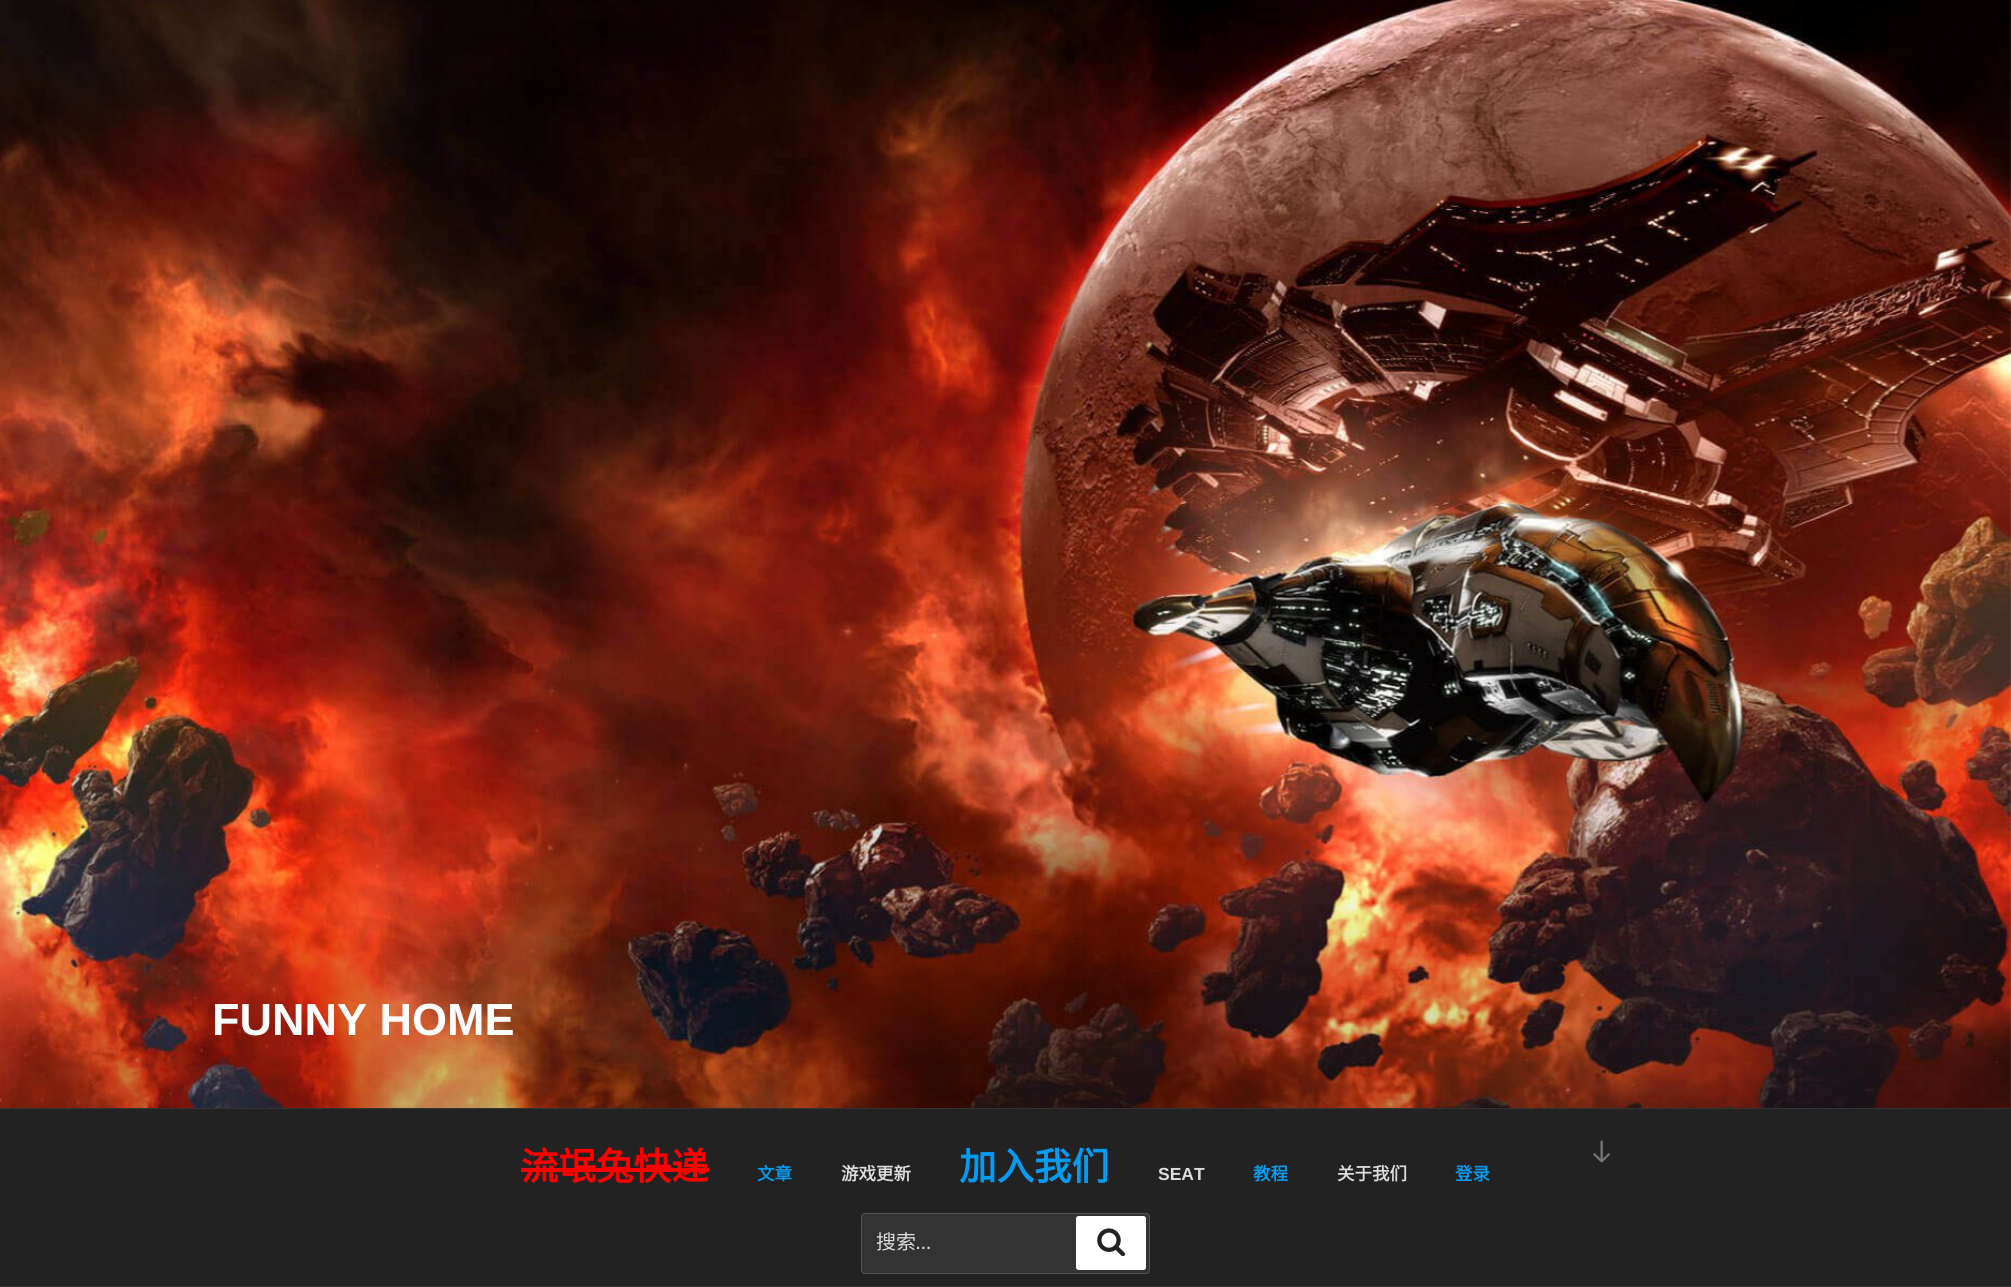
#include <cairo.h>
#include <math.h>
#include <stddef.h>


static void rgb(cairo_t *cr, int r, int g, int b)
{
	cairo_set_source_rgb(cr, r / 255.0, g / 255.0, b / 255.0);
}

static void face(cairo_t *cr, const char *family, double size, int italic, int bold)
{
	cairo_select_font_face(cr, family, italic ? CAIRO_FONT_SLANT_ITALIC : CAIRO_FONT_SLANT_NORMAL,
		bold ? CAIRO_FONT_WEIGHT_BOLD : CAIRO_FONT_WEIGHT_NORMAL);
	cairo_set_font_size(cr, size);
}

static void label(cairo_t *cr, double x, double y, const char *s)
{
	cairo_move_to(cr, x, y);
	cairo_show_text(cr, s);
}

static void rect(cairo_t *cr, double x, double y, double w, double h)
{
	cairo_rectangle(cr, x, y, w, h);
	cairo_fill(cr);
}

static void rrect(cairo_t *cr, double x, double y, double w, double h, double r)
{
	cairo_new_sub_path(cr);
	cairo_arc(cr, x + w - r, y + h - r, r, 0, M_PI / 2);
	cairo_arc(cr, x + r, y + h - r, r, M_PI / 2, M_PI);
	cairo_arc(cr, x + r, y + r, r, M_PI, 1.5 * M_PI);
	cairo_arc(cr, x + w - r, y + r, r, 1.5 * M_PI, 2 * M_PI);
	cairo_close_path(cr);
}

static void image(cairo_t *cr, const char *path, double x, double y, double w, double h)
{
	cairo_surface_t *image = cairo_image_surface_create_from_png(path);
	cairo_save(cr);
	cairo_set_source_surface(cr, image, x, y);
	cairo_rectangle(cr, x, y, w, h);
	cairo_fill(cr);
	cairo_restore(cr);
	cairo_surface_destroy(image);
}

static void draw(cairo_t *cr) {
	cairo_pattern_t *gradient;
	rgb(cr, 255, 255, 255);
	cairo_paint(cr);
	image(cr, "image0.png", 0, 0, 2011, 1108);
	gradient = cairo_pattern_create_linear(1006, 862, 1006, 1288);
	cairo_pattern_add_color_stop_rgba(gradient, 0, 0, 0, 0, 0);
	cairo_pattern_add_color_stop_rgba(gradient, 0.75, 0, 0, 0, 0.3);
	cairo_pattern_add_color_stop_rgba(gradient, 1, 0, 0, 0, 0.3);
	cairo_set_source(cr, gradient);
	cairo_pattern_destroy(gradient);
	rect(cr, 0, 885, 2011, 223);
	face(cr, "Liberation Sans", 45, 0, 1);
	rgb(cr, 255, 255, 255);
	label(cr, 212, 1035, "FUNNY HOME");
	rgb(cr, 34, 34, 34);
	rect(cr, 0, 1109, 2011, 177);
	rgb(cr, 51, 51, 51);
	rect(cr, 0, 1108, 2011, 1);
	rect(cr, 0, 1286, 2011, 1);
	face(cr, "Noto Sans CJK SC", 37.5, 0, 1);
	rgb(cr, 255, 0, 0);
	label(cr, 521, 1180, "流氓兔快递");
	rect(cr, 521, 1168, 188, 4);
	face(cr, "Noto Sans CJK SC", 17.5, 0, 1);
	rgb(cr, 4, 156, 242);
	label(cr, 757, 1180, "文章");
	rgb(cr, 221, 221, 221);
	label(cr, 841, 1180, "游戏更新");
	face(cr, "Noto Sans CJK SC", 37.5, 0, 1);
	rgb(cr, 4, 156, 242);
	label(cr, 959, 1180, "加入我们");
	face(cr, "Liberation Sans", 17.5, 0, 1);
	rgb(cr, 221, 221, 221);
	label(cr, 1158, 1180, "SEAT");
	face(cr, "Noto Sans CJK SC", 17.5, 0, 1);
	rgb(cr, 4, 156, 242);
	label(cr, 1253, 1180, "教程");
	rgb(cr, 221, 221, 221);
	label(cr, 1337, 1180, "关于我们");
	rgb(cr, 4, 156, 242);
	label(cr, 1455, 1180, "登录");
	rgb(cr, 51, 51, 51);
	rrect(cr, 861.5, 1213.5, 288, 60, 3.5);
	cairo_fill_preserve(cr);
	rgb(cr, 85, 85, 85);
	cairo_set_line_width(cr, 1);
	cairo_stroke(cr);
	face(cr, "Noto Sans CJK SC", 20, 0, 0);
	rgb(cr, 221, 221, 221);
	label(cr, 876, 1249, "搜索");
	face(cr, "Libre Franklin", 20, 0, 0);
	label(cr, 916, 1249, "…");
	rgb(cr, 255, 255, 255);
	rrect(cr, 1076, 1216, 70, 54, 2.5);
	cairo_fill(cr);
	image(cr, "image1.png", 1097, 1228, 28, 28);
	image(cr, "image2.png", 1593, 1140, 17, 23);
}

int main(void) {
	cairo_surface_t *surface = cairo_image_surface_create(CAIRO_FORMAT_RGB24, 2011, 1287);
	cairo_t *cr = cairo_create(surface);
	cairo_font_options_t *options = cairo_font_options_create();
	cairo_font_options_set_hint_metrics(options, CAIRO_HINT_METRICS_OFF);
	cairo_font_options_set_hint_style(options, CAIRO_HINT_STYLE_NONE);
	cairo_set_font_options(cr, options);
	cairo_set_miter_limit(cr, 4);
	draw(cr);
	cairo_surface_write_to_png(surface, "render.png");
	cairo_font_options_destroy(options);
	cairo_destroy(cr);
	cairo_surface_destroy(surface);
	return 0;
}
